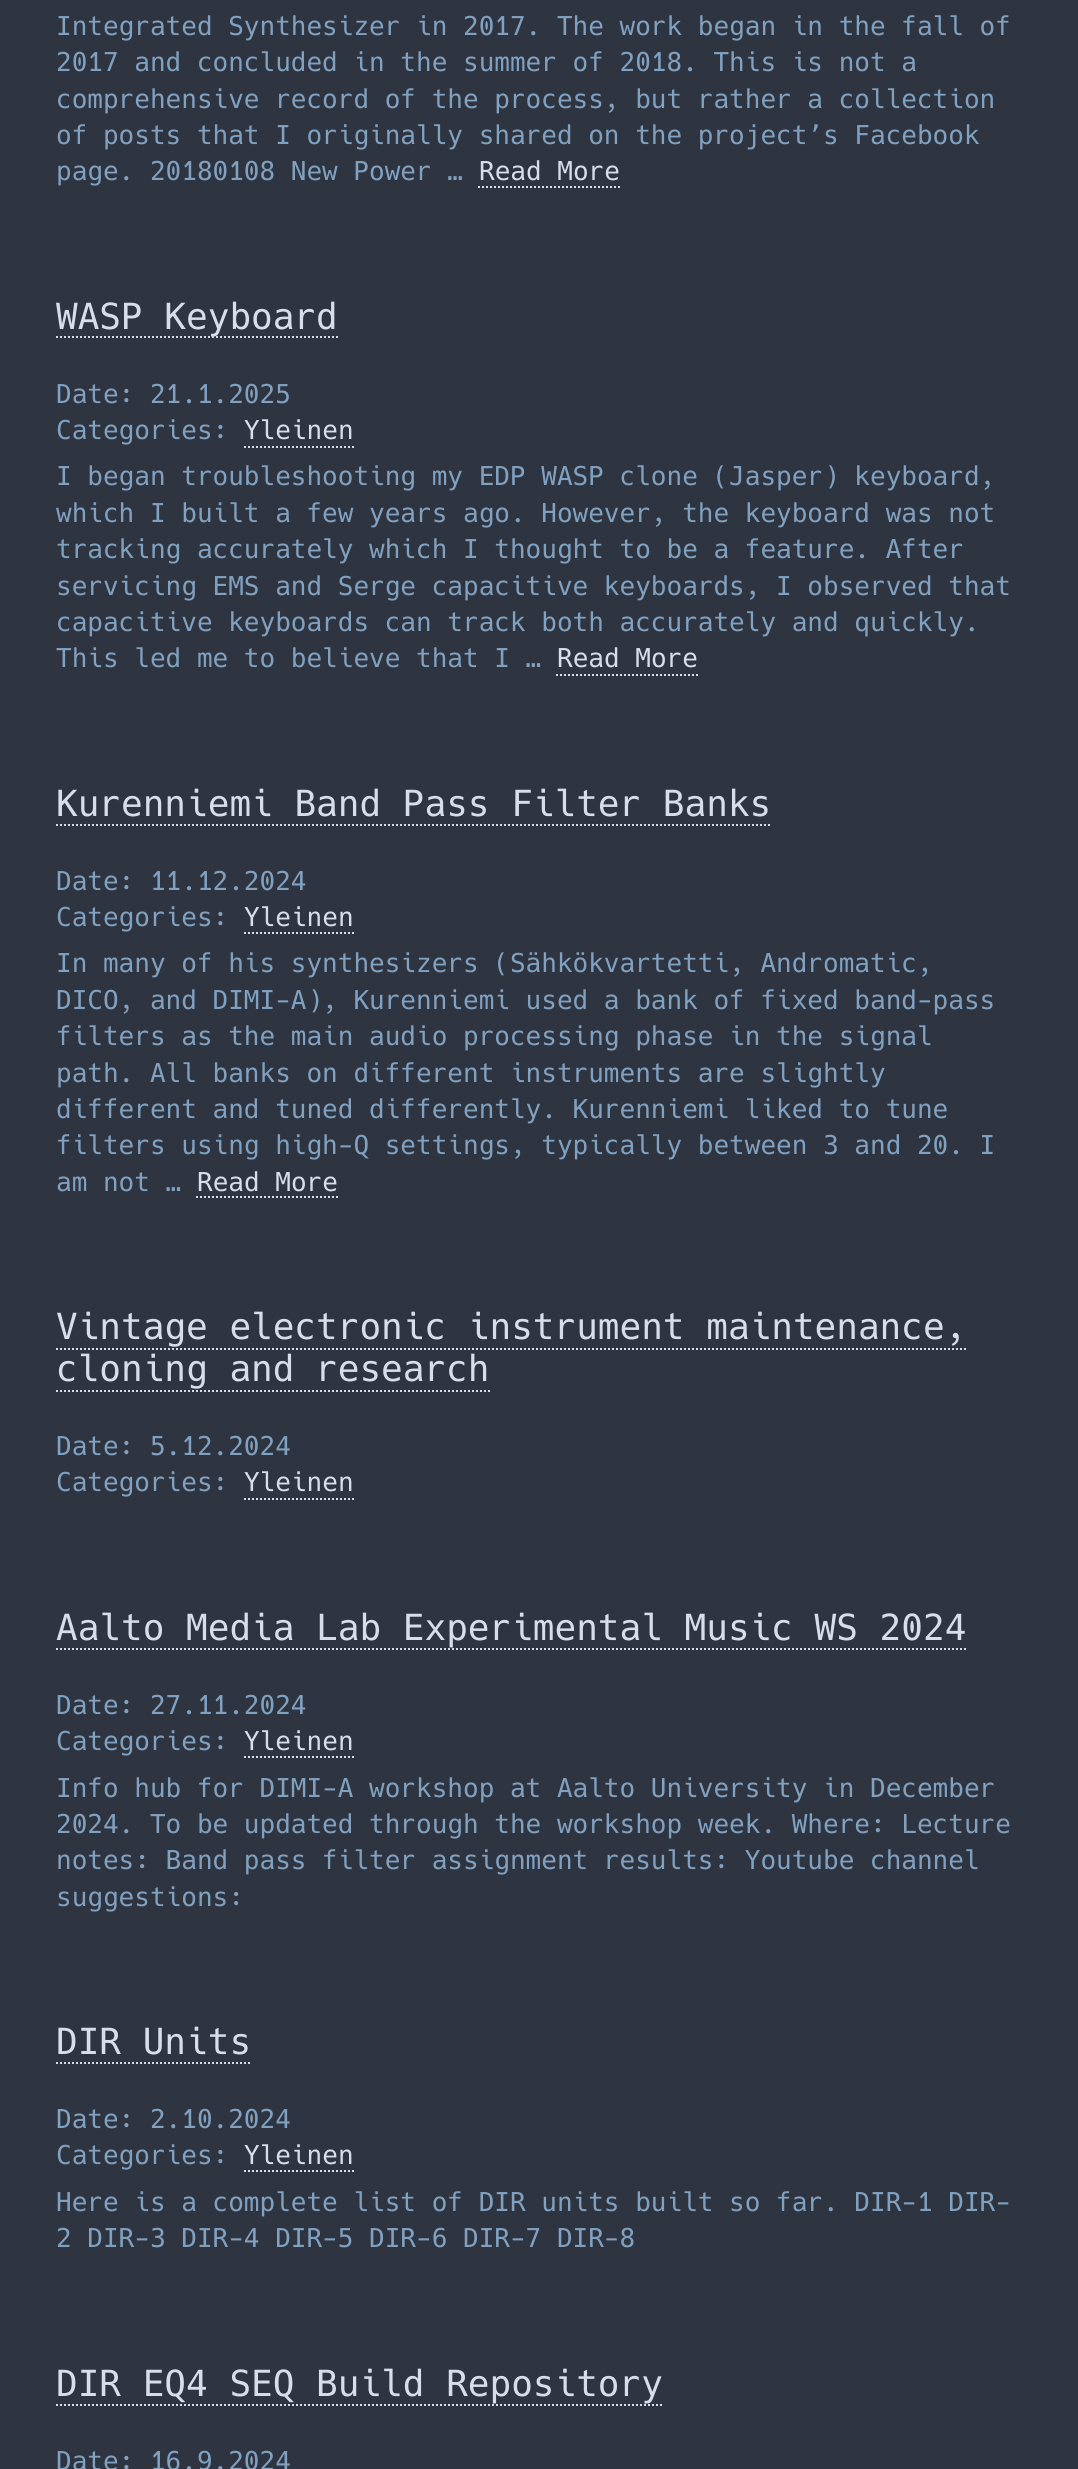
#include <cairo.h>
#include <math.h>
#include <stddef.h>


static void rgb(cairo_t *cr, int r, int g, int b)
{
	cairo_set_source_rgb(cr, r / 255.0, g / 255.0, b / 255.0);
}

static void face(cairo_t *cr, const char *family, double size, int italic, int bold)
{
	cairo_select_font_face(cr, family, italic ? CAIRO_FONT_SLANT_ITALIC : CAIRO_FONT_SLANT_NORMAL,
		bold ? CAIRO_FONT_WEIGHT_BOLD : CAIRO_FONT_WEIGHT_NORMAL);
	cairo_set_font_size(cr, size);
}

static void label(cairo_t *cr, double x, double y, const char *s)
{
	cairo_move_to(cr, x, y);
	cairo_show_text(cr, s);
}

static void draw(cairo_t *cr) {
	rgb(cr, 46, 52, 64);
	cairo_paint(cr);
	face(cr, "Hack", 26, 0, 0);
	rgb(cr, 129, 161, 193);
	label(cr, 56, 35, "Integrated Synthesizer in 2017. The work began in the fall of");
	label(cr, 56, 71, "2017 and concluded in the summer of 2018. This is not a");
	label(cr, 56, 108, "comprehensive record of the process, but rather a collection");
	label(cr, 56, 144, "of posts that I originally shared on the project’s Facebook");
	label(cr, 56, 180, "page. 20180108 New Power …");
	rgb(cr, 216, 222, 233);
	label(cr, 479, 180, "Read More");
	cairo_new_path(cr);
	cairo_move_to(cr, 478, 187);
	cairo_line_to(cr, 620, 187);
	cairo_set_dash(cr, (double[]){2, 2}, 2, 0);
	cairo_stroke(cr);
	cairo_new_path(cr);
	cairo_move_to(cr, 56, 337);
	cairo_line_to(cr, 338, 337);
	cairo_stroke(cr);
	face(cr, "Hack", 36, 0, 0);
	label(cr, 56, 329, "WASP Keyboard");
	face(cr, "Hack", 26, 0, 0);
	rgb(cr, 129, 161, 193);
	label(cr, 56, 403, "Date: 21.1.2025");
	label(cr, 56, 439, "Categories:");
	rgb(cr, 216, 222, 233);
	label(cr, 244, 439, "Yleinen");
	cairo_new_path(cr);
	cairo_move_to(cr, 244, 447);
	cairo_line_to(cr, 354, 447);
	cairo_stroke(cr);
	rgb(cr, 129, 161, 193);
	label(cr, 56, 485, "I began troubleshooting my EDP WASP clone (Jasper) keyboard,");
	label(cr, 56, 522, "which I built a few years ago. However, the keyboard was not");
	label(cr, 56, 558, "tracking accurately which I thought to be a feature. After");
	label(cr, 56, 595, "servicing EMS and Serge capacitive keyboards, I observed that");
	label(cr, 56, 631, "capacitive keyboards can track both accurately and quickly.");
	label(cr, 56, 667, "This led me to believe that I …");
	rgb(cr, 216, 222, 233);
	label(cr, 557, 667, "Read More");
	cairo_new_path(cr);
	cairo_move_to(cr, 556, 675);
	cairo_line_to(cr, 698, 675);
	cairo_stroke(cr);
	face(cr, "Hack", 36, 0, 0);
	label(cr, 56, 816, "Kurenniemi Band Pass Filter Banks");
	cairo_new_path(cr);
	cairo_move_to(cr, 56, 825);
	cairo_line_to(cr, 772, 825);
	cairo_stroke(cr);
	face(cr, "Hack", 26, 0, 0);
	rgb(cr, 129, 161, 193);
	label(cr, 56, 890, "Date: 11.12.2024");
	label(cr, 56, 926, "Categories:");
	rgb(cr, 216, 222, 233);
	label(cr, 244, 926, "Yleinen");
	cairo_new_path(cr);
	cairo_move_to(cr, 244, 933);
	cairo_line_to(cr, 354, 933);
	cairo_stroke(cr);
	rgb(cr, 129, 161, 193);
	label(cr, 56, 972, "In many of his synthesizers (Sähkökvartetti, Andromatic,");
	label(cr, 56, 1009, "DICO, and DIMI-A), Kurenniemi used a bank of fixed band-pass");
	label(cr, 56, 1045, "filters as the main audio processing phase in the signal");
	label(cr, 56, 1082, "path. All banks on different instruments are slightly");
	label(cr, 56, 1118, "different and tuned differently. Kurenniemi liked to tune");
	label(cr, 56, 1154, "filters using high-Q settings, typically between 3 and 20. I");
	label(cr, 56, 1191, "am not …");
	rgb(cr, 216, 222, 233);
	label(cr, 197, 1191, "Read More");
	cairo_new_path(cr);
	cairo_move_to(cr, 196, 1197);
	cairo_line_to(cr, 338, 1197);
	cairo_stroke(cr);
	face(cr, "Hack", 36, 0, 0);
	label(cr, 56, 1339, "Vintage electronic instrument maintenance,");
	cairo_new_path(cr);
	cairo_move_to(cr, 56, 1349);
	cairo_line_to(cr, 966, 1349);
	cairo_stroke(cr);
	label(cr, 56, 1381, "cloning and research");
	cairo_new_path(cr);
	cairo_move_to(cr, 56, 1391);
	cairo_line_to(cr, 490, 1391);
	cairo_stroke(cr);
	face(cr, "Hack", 26, 0, 0);
	rgb(cr, 129, 161, 193);
	label(cr, 56, 1455, "Date: 5.12.2024");
	label(cr, 56, 1491, "Categories:");
	rgb(cr, 216, 222, 233);
	label(cr, 244, 1491, "Yleinen");
	cairo_new_path(cr);
	cairo_move_to(cr, 244, 1499);
	cairo_line_to(cr, 354, 1499);
	cairo_stroke(cr);
	face(cr, "Hack", 36, 0, 0);
	label(cr, 56, 1640, "Aalto Media Lab Experimental Music WS 2024");
	cairo_new_path(cr);
	cairo_move_to(cr, 56, 1649);
	cairo_line_to(cr, 966, 1649);
	cairo_stroke(cr);
	face(cr, "Hack", 26, 0, 0);
	rgb(cr, 129, 161, 193);
	label(cr, 56, 1714, "Date: 27.11.2024");
	label(cr, 56, 1750, "Categories:");
	rgb(cr, 216, 222, 233);
	label(cr, 244, 1750, "Yleinen");
	cairo_new_path(cr);
	cairo_move_to(cr, 244, 1757);
	cairo_line_to(cr, 354, 1757);
	cairo_stroke(cr);
	rgb(cr, 129, 161, 193);
	label(cr, 56, 1797, "Info hub for DIMI-A workshop at Aalto University in December");
	label(cr, 56, 1833, "2024. To be updated through the workshop week. Where: Lecture");
	label(cr, 56, 1869, "notes: Band pass filter assignment results: Youtube channel");
	label(cr, 56, 1906, "suggestions:");
	face(cr, "Hack", 36, 0, 0);
	rgb(cr, 216, 222, 233);
	label(cr, 56, 2054, "DIR Units");
	cairo_new_path(cr);
	cairo_move_to(cr, 56, 2063);
	cairo_line_to(cr, 252, 2063);
	cairo_stroke(cr);
	face(cr, "Hack", 26, 0, 0);
	rgb(cr, 129, 161, 193);
	label(cr, 56, 2128, "Date: 2.10.2024");
	label(cr, 56, 2164, "Categories:");
	rgb(cr, 216, 222, 233);
	label(cr, 244, 2164, "Yleinen");
	cairo_new_path(cr);
	cairo_move_to(cr, 244, 2171);
	cairo_line_to(cr, 354, 2171);
	cairo_stroke(cr);
	rgb(cr, 129, 161, 193);
	label(cr, 56, 2211, "Here is a complete list of DIR units built so far. DIR-1 DIR-");
	label(cr, 56, 2247, "2 DIR-3 DIR-4 DIR-5 DIR-6 DIR-7 DIR-8");
	face(cr, "Hack", 36, 0, 0);
	rgb(cr, 216, 222, 233);
	label(cr, 56, 2396, "DIR EQ4 SEQ Build Repository");
	cairo_new_path(cr);
	cairo_move_to(cr, 56, 2405);
	cairo_line_to(cr, 662, 2405);
	cairo_stroke(cr);
	face(cr, "Hack", 26, 0, 0);
	rgb(cr, 129, 161, 193);
	label(cr, 56, 2470, "Date: 16.9.2024");
}

int main(void) {
	cairo_surface_t *surface = cairo_image_surface_create(CAIRO_FORMAT_RGB24, 1078, 2469);
	cairo_t *cr = cairo_create(surface);
	cairo_font_options_t *options = cairo_font_options_create();
	cairo_font_options_set_hint_metrics(options, CAIRO_HINT_METRICS_OFF);
	cairo_font_options_set_hint_style(options, CAIRO_HINT_STYLE_NONE);
	cairo_set_font_options(cr, options);
	cairo_set_miter_limit(cr, 4);
	draw(cr);
	cairo_surface_write_to_png(surface, "render.png");
	cairo_font_options_destroy(options);
	cairo_destroy(cr);
	cairo_surface_destroy(surface);
	return 0;
}
